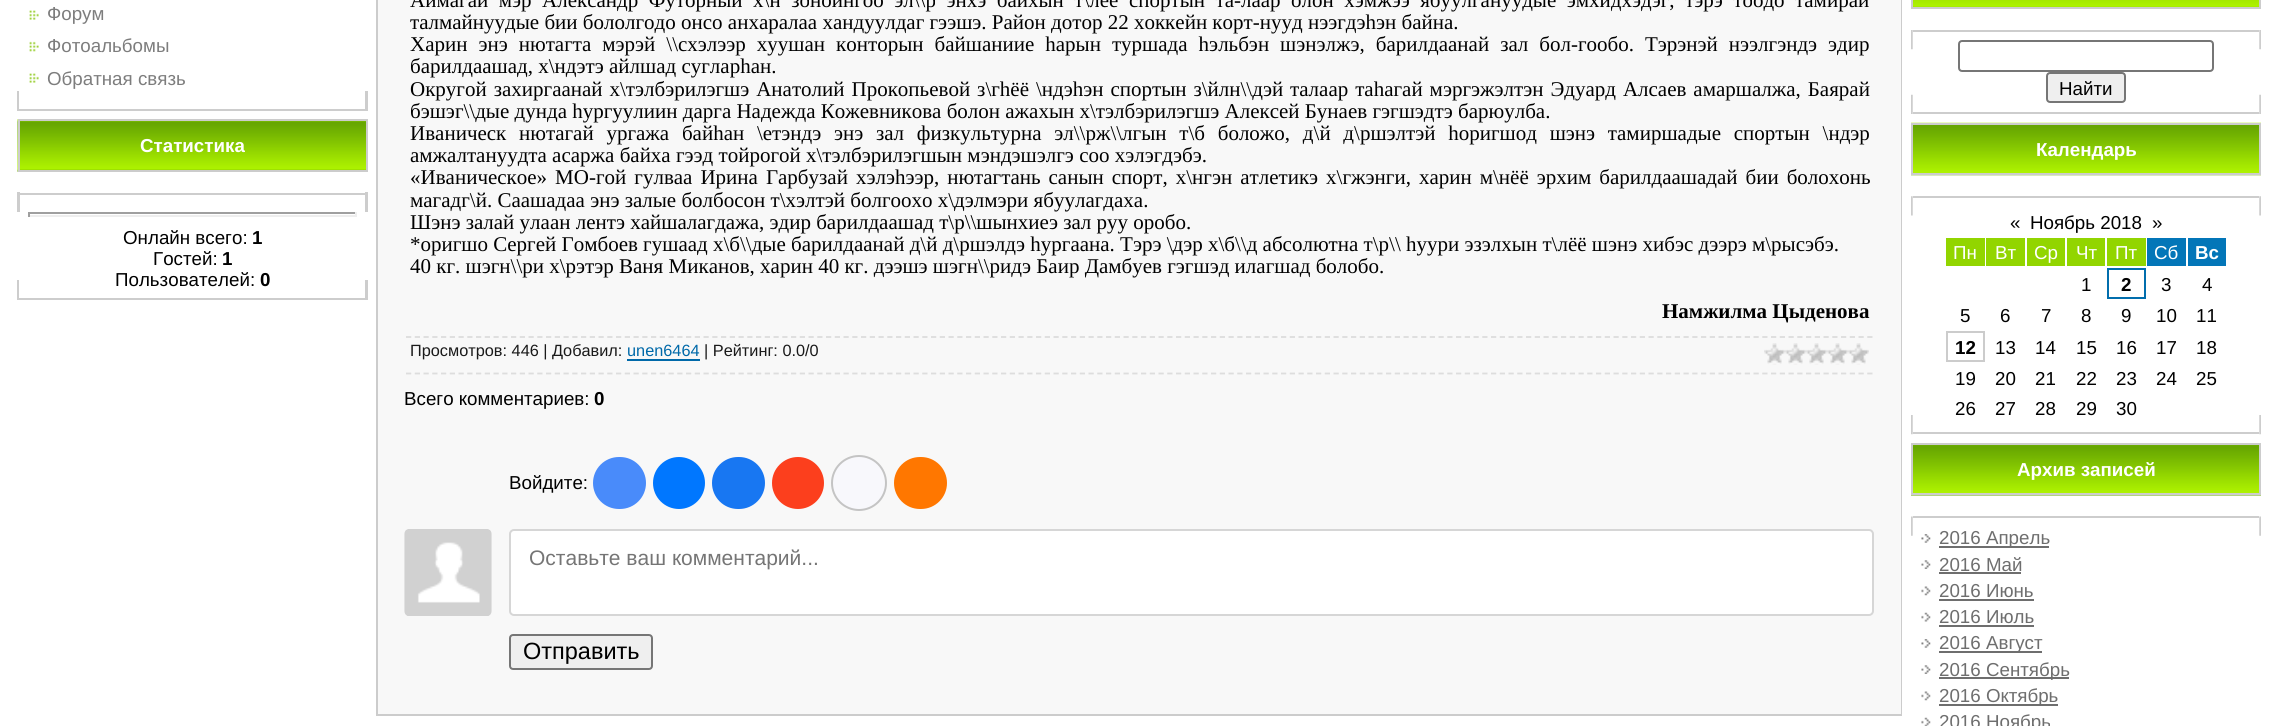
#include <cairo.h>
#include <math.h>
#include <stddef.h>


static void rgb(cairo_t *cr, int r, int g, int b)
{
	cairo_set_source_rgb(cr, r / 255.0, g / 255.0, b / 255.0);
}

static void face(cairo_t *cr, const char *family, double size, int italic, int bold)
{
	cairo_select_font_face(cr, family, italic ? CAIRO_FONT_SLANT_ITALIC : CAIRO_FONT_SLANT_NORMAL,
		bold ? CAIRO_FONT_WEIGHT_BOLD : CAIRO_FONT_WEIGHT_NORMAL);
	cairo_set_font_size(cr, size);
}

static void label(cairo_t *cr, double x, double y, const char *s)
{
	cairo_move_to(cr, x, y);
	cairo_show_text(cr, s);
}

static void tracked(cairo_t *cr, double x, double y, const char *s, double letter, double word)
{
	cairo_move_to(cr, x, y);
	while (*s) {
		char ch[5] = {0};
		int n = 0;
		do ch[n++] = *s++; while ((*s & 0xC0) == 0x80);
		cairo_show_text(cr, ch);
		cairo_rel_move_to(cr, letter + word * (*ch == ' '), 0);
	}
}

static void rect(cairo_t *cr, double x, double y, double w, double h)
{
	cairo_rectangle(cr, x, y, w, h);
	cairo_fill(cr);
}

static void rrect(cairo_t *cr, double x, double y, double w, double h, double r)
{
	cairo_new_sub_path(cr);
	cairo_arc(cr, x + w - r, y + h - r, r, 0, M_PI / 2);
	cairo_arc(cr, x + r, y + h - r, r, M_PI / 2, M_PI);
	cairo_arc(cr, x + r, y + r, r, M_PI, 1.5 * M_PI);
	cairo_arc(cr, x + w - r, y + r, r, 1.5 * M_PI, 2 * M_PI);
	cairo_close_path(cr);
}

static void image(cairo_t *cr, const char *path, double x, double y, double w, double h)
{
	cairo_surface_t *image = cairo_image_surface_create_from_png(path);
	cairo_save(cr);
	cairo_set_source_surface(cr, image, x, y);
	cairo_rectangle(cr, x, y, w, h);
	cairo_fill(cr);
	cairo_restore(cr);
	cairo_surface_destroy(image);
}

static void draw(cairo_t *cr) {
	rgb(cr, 255, 255, 255);
	cairo_paint(cr);
	rgb(cr, 205, 205, 205);
	rect(cr, 19, 109, 347, 2);
	image(cr, "image0.png", 29, 10, 10, 10);
	face(cr, "Liberation Sans", 18.75, 0, 0);
	rgb(cr, 125, 125, 125);
	label(cr, 47, 20, "Форум");
	image(cr, "image1.png", 29, 41, 10, 11);
	label(cr, 47, 52, "Фотоальбомы");
	image(cr, "image0.png", 29, 73, 10, 10);
	label(cr, 47, 85, "Обратная связь");
	rgb(cr, 205, 205, 205);
	rect(cr, 17, 91, 2, 20);
	rect(cr, 365, 91, 3, 20);
	image(cr, "image2.png", 17, 119, 349, 53);
	cairo_rectangle(cr, 19, 120, 348, 51);
	rgb(cr, 204, 204, 204);
	cairo_stroke(cr);
	face(cr, "Liberation Sans", 18.75, 0, 1);
	rgb(cr, 255, 255, 255);
	label(cr, 140, 152, "Статистика");
	rgb(cr, 205, 205, 205);
	rect(cr, 17, 280, 2, 20);
	rect(cr, 19, 193, 347, 2);
	rect(cr, 17, 192, 3, 20);
	rect(cr, 19, 298, 347, 2);
	rgb(cr, 159, 159, 159);
	rect(cr, 28, 212, 329, 2);
	rgb(cr, 238, 238, 238);
	rect(cr, 355, 212, 2, 5);
	rect(cr, 28, 215, 329, 2);
	rgb(cr, 159, 159, 159);
	rect(cr, 28, 212, 2, 5);
	face(cr, "Liberation Sans", 18.75, 0, 0);
	rgb(cr, 0, 0, 0);
	label(cr, 123, 244, "Онлайн всего:");
	face(cr, "Liberation Sans", 18.75, 0, 1);
	label(cr, 252, 244, "1");
	face(cr, "Liberation Sans", 18.75, 0, 0);
	label(cr, 153, 265, "Гостей:");
	face(cr, "Liberation Sans", 18.75, 0, 1);
	label(cr, 222, 265, "1");
	face(cr, "Liberation Sans", 18.75, 0, 0);
	label(cr, 115, 286, "Пользователей:");
	face(cr, "Liberation Sans", 18.75, 0, 1);
	label(cr, 260, 286, "0");
	rgb(cr, 205, 205, 205);
	rect(cr, 365, 280, 3, 20);
	rect(cr, 365, 192, 3, 20);
	cairo_rectangle(cr, 377, -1, 1524, 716);
	rgb(cr, 204, 204, 204);
	cairo_stroke(cr);
	rgb(cr, 248, 248, 248);
	rect(cr, 378, 0, 1523, 714);
	face(cr, "Liberation Serif", 21, 0, 0);
	rgb(cr, 0, 0, 0);
	tracked(cr, 410, 7, "Аймагай мэр Александр Футорный х\\н зонойнгоо эл\\\\р энхэ байхын т\\лёё спортын та-лаар олон хэмжээ ябуулгануудые эмхидхэдэг, тэрэ тоодо тамирай", 0, 5.25);
	label(cr, 410, 29, "талмайнуудые бии бололгодо онсо анхаралаа хандуулдаг гээшэ. Район дотор 22 хоккейн корт-нууд нээгдэhэн байна.");
	tracked(cr, 410, 51, "Харин энэ нютагта мэрэй \\\\схэлээр хуушан конторын байшаниие hарын туршада hэльбэн шэнэлжэ, барилдаанай зал бол-гообо. Тэрэнэй нээлгэндэ эдир", 0, 5.75);
	label(cr, 410, 73, "барилдаашад, х\\ндэтэ айлшад сугларhан.");
	tracked(cr, 410, 96, "Округой захиргаанай х\\тэлбэрилэгшэ Анатолий Прокопьевой з\\гhёё \\ндэhэн спортын з\\йлн\\\\дэй талаар таhагай мэргэжэлтэн Эдуард Алсаев амаршалжа, Баярай", 0, 1.7);
	label(cr, 410, 118, "бэшэг\\\\дые дунда hургуулиин дарга Надежда Кожевникова болон ажахын х\\тэлбэрилэгшэ Алексей Бунаев гэгшэдтэ барюулба.");
	tracked(cr, 410, 140, "Иваническ нютагай ургажа байhан \\етэндэ энэ зал физкультурна эл\\\\рж\\\\лгын т\\б боложо, д\\й д\\ршэлтэй hоригшод шэнэ тамиршадые спортын \\ндэр", 0, 7.5);
	label(cr, 410, 162, "амжалтануудта асаржа байха гээд тойрогой х\\тэлбэрилэгшын мэндэшэлгэ соо хэлэгдэбэ.");
	tracked(cr, 410, 184, "«Иваническое» МО-гой гулваа Ирина Гарбузай хэлэhээр, нютагтань санын спорт, х\\нгэн атлетикэ х\\гжэнги, харин м\\нёё эрхим барилдаашадай бии болохонь", 0, 2.75);
	label(cr, 410, 207, "магадг\\й. Саашадаа энэ залые болбосон т\\хэлтэй болгоохо х\\дэлмэри ябуулагдаха.");
	label(cr, 410, 229, "Шэнэ залай улаан лентэ хайшалагдажа, эдир барилдаашад т\\р\\\\шынхиеэ зал руу оробо.");
	label(cr, 410, 251, "*оригшо Сергей Гомбоев гушаад х\\б\\\\дые барилдаанай д\\й д\\ршэлдэ hургаана. Тэрэ \\дэр х\\б\\\\д абсолютна т\\р\\\\ hуури эзэлхын т\\лёё шэнэ хибэс дээрэ м\\рысэбэ.");
	label(cr, 410, 273, "40 кг. шэгн\\\\ри х\\рэтэр Ваня Миканов, харин 40 кг. дээшэ шэгн\\\\ридэ Баир Дамбуев гэгшэд илагшад болобо.");
	face(cr, "Liberation Serif", 21, 0, 1);
	label(cr, 1662, 318, "Намжилма Цыденова");
	cairo_new_path(cr);
	cairo_move_to(cr, 406, 337);
	cairo_line_to(cr, 1872.5, 337);
	rgb(cr, 221, 221, 221);
	cairo_set_line_width(cr, 1.8);
	cairo_set_dash(cr, (double[]){5.25, 3.5}, 2, 0);
	cairo_stroke(cr);
	cairo_new_path(cr);
	cairo_move_to(cr, 406, 373.5);
	cairo_line_to(cr, 1872.5, 373.5);
	cairo_stroke(cr);
	face(cr, "Liberation Sans", 16.3, 0, 0);
	rgb(cr, 26, 26, 26);
	label(cr, 410, 356, "Просмотров: 446 | Добавил:");
	rgb(cr, 0, 105, 169);
	label(cr, 627, 356, "unen6464");
	rect(cr, 627, 359, 73, 2);
	rgb(cr, 26, 26, 26);
	label(cr, 704, 356, "| Рейтинг: 0.0/0");
	image(cr, "image3.png", 1764, 343, 105, 22);
	face(cr, "Liberation Sans", 18.75, 0, 0);
	rgb(cr, 0, 0, 0);
	label(cr, 404, 405, "Всего комментариев:");
	face(cr, "Liberation Sans", 18.75, 0, 1);
	label(cr, 594, 405, "0");
	face(cr, "Liberation Sans", 18.75, 0, 0);
	label(cr, 509, 489, "Войдите:");
	rgb(cr, 73, 139, 250);
	rrect(cr, 593, 457, 53, 52, 26);
	cairo_fill(cr);
	rgb(cr, 0, 119, 255);
	cairo_arc(cr, 679, 483, 26, 0, 2 * M_PI);
	cairo_fill(cr);
	rgb(cr, 24, 119, 242);
	rrect(cr, 712, 457, 53, 52, 26);
	cairo_fill(cr);
	rgb(cr, 252, 63, 29);
	cairo_arc(cr, 798, 483, 26, 0, 2 * M_PI);
	cairo_fill(cr);
	rgb(cr, 248, 248, 252);
	cairo_arc(cr, 859, 483, 27, 0, 2 * M_PI);
	cairo_fill_preserve(cr);
	rgb(cr, 196, 196, 196);
	cairo_set_line_width(cr, 2);
	cairo_set_dash(cr, NULL, 0, 0);
	cairo_stroke(cr);
	rgb(cr, 255, 119, 0);
	rrect(cr, 894, 457, 53, 52, 26);
	cairo_fill(cr);
	image(cr, "image4.png", 404, 529, 88, 87);
	rgb(cr, 255, 255, 255);
	rrect(cr, 510, 530, 1363, 85, 4);
	cairo_fill_preserve(cr);
	rgb(cr, 214, 214, 214);
	cairo_stroke(cr);
	face(cr, "Liberation Sans", 21, 0, 0);
	rgb(cr, 117, 117, 117);
	label(cr, 529, 565, "Оставьте ваш комментарий...");
	rgb(cr, 239, 239, 239);
	rrect(cr, 510, 635, 142, 34, 3);
	cairo_fill_preserve(cr);
	rgb(cr, 118, 118, 118);
	cairo_stroke(cr);
	face(cr, "Liberation Sans", 23.5, 0, 0);
	rgb(cr, 0, 0, 0);
	label(cr, 523, 659, "Отправить");
	image(cr, "image5.png", 1913, 0, 346, 7);
	cairo_rectangle(cr, 1912, -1, 348, 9);
	rgb(cr, 204, 204, 204);
	cairo_stroke(cr);
	image(cr, "image6.png", 1911, 94, 2, 20);
	image(cr, "image7.png", 1911, 30, 2, 20);
	rgb(cr, 205, 205, 205);
	rect(cr, 1913, 30, 346, 2);
	rect(cr, 1913, 112, 346, 2);
	rrect(cr, 1959, 41, 254, 30, 3);
	rgb(cr, 118, 118, 118);
	cairo_stroke(cr);
	rgb(cr, 239, 239, 239);
	rrect(cr, 2047, 73, 78, 29, 3);
	cairo_fill_preserve(cr);
	rgb(cr, 118, 118, 118);
	cairo_stroke(cr);
	face(cr, "Liberation Sans", 18.75, 0, 0);
	rgb(cr, 0, 0, 0);
	label(cr, 2059, 95, "Найти");
	image(cr, "image8.png", 2259, 94, 2, 20);
	image(cr, "image9.png", 2259, 30, 2, 20);
	image(cr, "image10.png", 1911, 122, 350, 54);
	cairo_rectangle(cr, 1912, 124, 348, 50);
	rgb(cr, 204, 204, 204);
	cairo_stroke(cr);
	face(cr, "Liberation Sans", 18.75, 0, 1);
	rgb(cr, 255, 255, 255);
	label(cr, 2036, 156, "Календарь");
	image(cr, "image7.png", 1911, 415, 2, 20);
	image(cr, "image11.png", 1911, 196, 2, 20);
	rgb(cr, 205, 205, 205);
	rect(cr, 1913, 196, 346, 2);
	rect(cr, 1913, 432, 346, 2);
	face(cr, "Liberation Sans", 18.75, 0, 0);
	rgb(cr, 0, 0, 0);
	label(cr, 2010, 229, "«");
	label(cr, 2030, 229, "Ноябрь 2018");
	label(cr, 2152, 229, "»");
	rgb(cr, 146, 213, 0);
	rect(cr, 1946, 238, 39, 28);
	rgb(cr, 255, 255, 255);
	label(cr, 1953, 259, "Пн");
	rgb(cr, 146, 213, 0);
	rect(cr, 1986, 238, 39, 28);
	rgb(cr, 255, 255, 255);
	label(cr, 1995, 259, "Вт");
	rgb(cr, 146, 213, 0);
	rect(cr, 2027, 238, 38, 28);
	rgb(cr, 255, 255, 255);
	label(cr, 2034, 259, "Ср");
	rgb(cr, 146, 213, 0);
	rect(cr, 2067, 238, 38, 28);
	rgb(cr, 255, 255, 255);
	label(cr, 2076, 259, "Чт");
	rgb(cr, 146, 213, 0);
	rect(cr, 2107, 238, 39, 28);
	rgb(cr, 255, 255, 255);
	label(cr, 2115, 259, "Пт");
	rgb(cr, 3, 118, 184);
	rect(cr, 2147, 238, 39, 28);
	rgb(cr, 255, 255, 255);
	label(cr, 2154, 259, "Сб");
	rgb(cr, 3, 118, 184);
	rect(cr, 2188, 238, 38, 28);
	face(cr, "Liberation Sans", 18.75, 0, 1);
	rgb(cr, 255, 255, 255);
	label(cr, 2195, 259, "Вс");
	face(cr, "Liberation Sans", 18.75, 0, 0);
	rgb(cr, 0, 0, 0);
	label(cr, 2081, 291, "1");
	cairo_rectangle(cr, 2108, 269, 37, 29);
	rgb(cr, 1, 110, 173);
	cairo_stroke(cr);
	face(cr, "Liberation Sans", 18.75, 0, 1);
	rgb(cr, 0, 0, 0);
	label(cr, 2121, 291, "2");
	face(cr, "Liberation Sans", 18.75, 0, 0);
	label(cr, 2161, 291, "3");
	label(cr, 2202, 291, "4");
	label(cr, 1960, 322, "5");
	label(cr, 2000, 322, "6");
	label(cr, 2041, 322, "7");
	label(cr, 2081, 322, "8");
	label(cr, 2121, 322, "9");
	label(cr, 2156, 322, "10");
	label(cr, 2196, 322, "11");
	cairo_rectangle(cr, 1947, 332, 37, 29);
	rgb(cr, 204, 204, 204);
	cairo_stroke(cr);
	face(cr, "Liberation Sans", 18.75, 0, 1);
	rgb(cr, 0, 0, 0);
	label(cr, 1955, 354, "12");
	face(cr, "Liberation Sans", 18.75, 0, 0);
	label(cr, 1995, 354, "13");
	label(cr, 2035, 354, "14");
	label(cr, 2076, 354, "15");
	label(cr, 2116, 354, "16");
	label(cr, 2156, 354, "17");
	label(cr, 2196, 354, "18");
	label(cr, 1955, 385, "19");
	label(cr, 1995, 385, "20");
	label(cr, 2035, 385, "21");
	label(cr, 2076, 385, "22");
	label(cr, 2116, 385, "23");
	label(cr, 2156, 385, "24");
	label(cr, 2196, 385, "25");
	label(cr, 1955, 415, "26");
	label(cr, 1995, 415, "27");
	label(cr, 2035, 415, "28");
	label(cr, 2076, 415, "29");
	label(cr, 2116, 415, "30");
	image(cr, "image9.png", 2259, 415, 2, 20);
	image(cr, "image12.png", 2259, 196, 2, 20);
	image(cr, "image13.png", 1911, 445, 350, 51);
	cairo_rectangle(cr, 1912, 444, 348, 50);
	rgb(cr, 204, 204, 204);
	cairo_stroke(cr);
	face(cr, "Liberation Sans", 18.75, 0, 1);
	rgb(cr, 255, 255, 255);
	label(cr, 2017, 476, "Архив записей");
	image(cr, "image14.png", 1911, 516, 2, 20);
	image(cr, "image15.png", 2259, 516, 2, 20);
	rgb(cr, 205, 205, 205);
	rect(cr, 1913, 516, 346, 2);
	image(cr, "image16.png", 1921, 534, 10, 9);
	rgb(cr, 110, 110, 110);
	rect(cr, 1939, 546, 110, 2);
	face(cr, "Liberation Sans", 18.75, 0, 0);
	label(cr, 1939, 544, "2016 Апрель");
	image(cr, "image17.png", 1921, 560, 10, 9);
	label(cr, 1939, 571, "2016 Май");
	rect(cr, 1939, 572, 82, 2);
	image(cr, "image18.png", 1921, 586, 10, 10);
	label(cr, 1939, 597, "2016 Июнь");
	rect(cr, 1939, 599, 95, 2);
	image(cr, "image19.png", 1921, 612, 10, 10);
	label(cr, 1939, 623, "2016 Июль");
	rect(cr, 1939, 625, 95, 2);
	image(cr, "image16.png", 1921, 639, 10, 9);
	rect(cr, 1939, 651, 103, 2);
	label(cr, 1939, 649, "2016 Август");
	image(cr, "image17.png", 1921, 665, 10, 9);
	rect(cr, 1939, 677, 130, 2);
	label(cr, 1939, 676, "2016 Сентябрь");
	image(cr, "image18.png", 1921, 691, 10, 10);
	rect(cr, 1939, 704, 119, 2);
	label(cr, 1939, 702, "2016 Октябрь");
	image(cr, "image20.png", 1921, 717, 10, 9);
	label(cr, 1939, 728, "2016 Ноябрь");
}

int main(void) {
	cairo_surface_t *surface = cairo_image_surface_create(CAIRO_FORMAT_RGB24, 2278, 726);
	cairo_t *cr = cairo_create(surface);
	cairo_font_options_t *options = cairo_font_options_create();
	cairo_font_options_set_hint_metrics(options, CAIRO_HINT_METRICS_OFF);
	cairo_font_options_set_hint_style(options, CAIRO_HINT_STYLE_NONE);
	cairo_set_font_options(cr, options);
	cairo_set_miter_limit(cr, 4);
	draw(cr);
	cairo_surface_write_to_png(surface, "render.png");
	cairo_font_options_destroy(options);
	cairo_destroy(cr);
	cairo_surface_destroy(surface);
	return 0;
}
